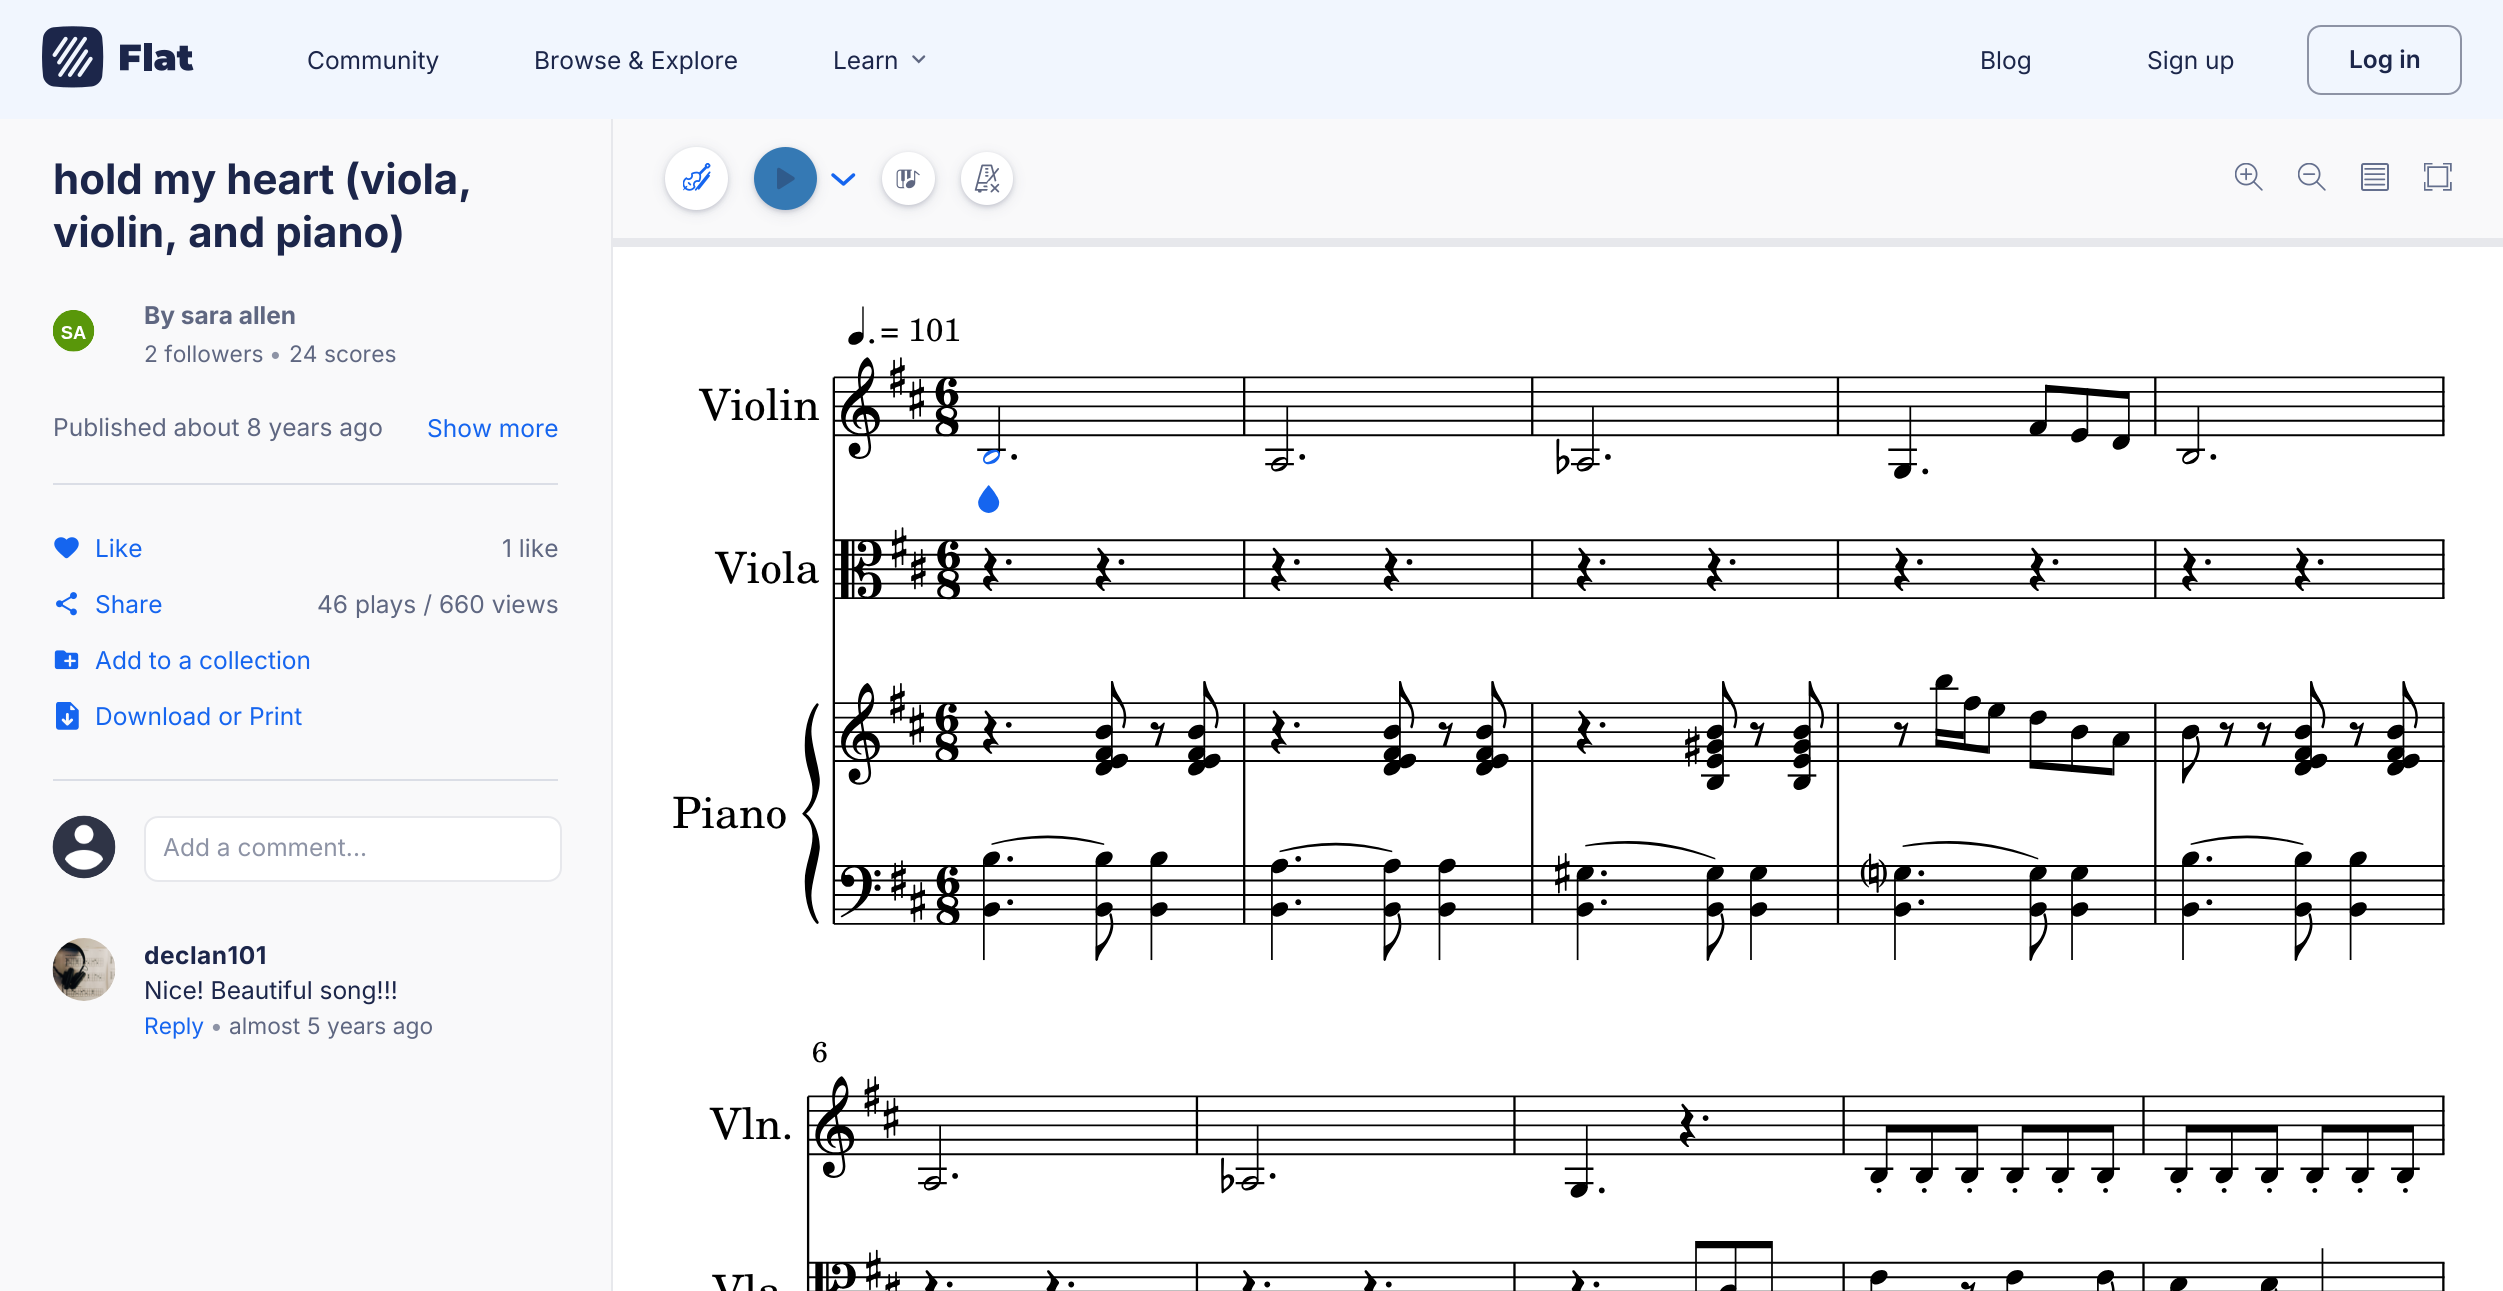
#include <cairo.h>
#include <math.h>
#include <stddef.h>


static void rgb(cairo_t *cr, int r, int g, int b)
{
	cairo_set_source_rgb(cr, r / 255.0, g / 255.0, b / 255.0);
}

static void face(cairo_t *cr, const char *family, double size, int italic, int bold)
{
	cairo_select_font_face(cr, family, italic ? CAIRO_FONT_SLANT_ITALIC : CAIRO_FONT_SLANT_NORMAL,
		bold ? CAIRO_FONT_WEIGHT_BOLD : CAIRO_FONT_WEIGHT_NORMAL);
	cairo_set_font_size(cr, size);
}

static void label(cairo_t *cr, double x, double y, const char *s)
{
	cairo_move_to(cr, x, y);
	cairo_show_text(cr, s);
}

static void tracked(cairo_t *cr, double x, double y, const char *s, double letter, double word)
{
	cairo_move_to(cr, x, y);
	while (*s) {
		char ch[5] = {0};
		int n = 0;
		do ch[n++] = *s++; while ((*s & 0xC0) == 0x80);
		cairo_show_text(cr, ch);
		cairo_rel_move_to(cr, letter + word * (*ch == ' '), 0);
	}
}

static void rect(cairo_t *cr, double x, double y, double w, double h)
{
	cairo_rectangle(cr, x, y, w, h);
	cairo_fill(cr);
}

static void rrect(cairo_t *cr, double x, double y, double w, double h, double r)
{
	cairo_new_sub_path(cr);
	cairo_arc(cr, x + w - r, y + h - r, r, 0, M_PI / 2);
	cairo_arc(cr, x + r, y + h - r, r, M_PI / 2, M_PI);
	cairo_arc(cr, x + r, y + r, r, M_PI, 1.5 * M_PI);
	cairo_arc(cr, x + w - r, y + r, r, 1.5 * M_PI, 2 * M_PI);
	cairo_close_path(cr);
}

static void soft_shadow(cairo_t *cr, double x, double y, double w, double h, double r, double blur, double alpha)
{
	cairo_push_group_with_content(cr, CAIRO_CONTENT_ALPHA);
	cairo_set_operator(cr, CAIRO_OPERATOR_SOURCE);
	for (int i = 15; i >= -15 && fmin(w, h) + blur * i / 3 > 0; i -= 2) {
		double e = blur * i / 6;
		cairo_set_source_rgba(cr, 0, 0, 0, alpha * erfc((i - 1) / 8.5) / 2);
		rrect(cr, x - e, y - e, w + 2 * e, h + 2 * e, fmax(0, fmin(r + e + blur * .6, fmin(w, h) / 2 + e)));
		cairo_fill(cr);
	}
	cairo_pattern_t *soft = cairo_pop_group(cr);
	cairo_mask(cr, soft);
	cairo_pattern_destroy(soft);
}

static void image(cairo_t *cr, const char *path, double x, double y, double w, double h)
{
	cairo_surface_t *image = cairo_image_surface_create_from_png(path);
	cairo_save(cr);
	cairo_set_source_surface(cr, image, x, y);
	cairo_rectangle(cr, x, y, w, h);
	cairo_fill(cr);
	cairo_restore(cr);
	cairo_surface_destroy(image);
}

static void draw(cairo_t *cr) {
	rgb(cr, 255, 255, 255);
	cairo_paint(cr);
	rgb(cr, 241, 246, 254);
	rect(cr, 0, 0, 2503, 119);
	image(cr, "image0.png", 42, 26, 152, 62);
	face(cr, "Inter", 24.5, 0, 0);
	rgb(cr, 28, 38, 74);
	label(cr, 307, 69, "Community");
	label(cr, 534, 69, "Browse & Explore");
	label(cr, 833, 69, "Learn");
	image(cr, "image1.png", 912, 55, 14, 9);
	label(cr, 1980, 69, "Blog");
	label(cr, 2147, 69, "Sign up");
	rrect(cr, 2308, 26, 153, 68, 13);
	rgb(cr, 141, 147, 165);
	cairo_stroke(cr);
	face(cr, "Inter SemiBold", 24.5, 0, 0);
	rgb(cr, 28, 38, 74);
	label(cr, 2349, 68, "Log in");
	rgb(cr, 249, 249, 250);
	rect(cr, 0, 119, 611, 1172);
	rgb(cr, 231, 232, 236);
	rect(cr, 611, 119, 2, 1172);
	face(cr, "Inter", 42, 0, 1);
	rgb(cr, 28, 38, 74);
	label(cr, 53, 194, "hold my heart (viola,");
	label(cr, 53, 247, "violin, and piano)");
	rgb(cr, 255, 255, 255);
	cairo_new_path(cr);
	cairo_arc(cr, 74, 331, 21, 0, 2 * M_PI);
	cairo_fill(cr);
	image(cr, "image2.png", 53, 310, 42, 42);
	face(cr, "Inter", 24.5, 0, 1);
	rgb(cr, 95, 103, 129);
	label(cr, 144, 324, "By sara allen");
	face(cr, "Inter", 22.75, 0, 0);
	label(cr, 144, 362, "2 followers");
	rgb(cr, 141, 147, 165);
	label(cr, 269, 362, "•");
	rgb(cr, 95, 103, 129);
	label(cr, 289, 362, "24 scores");
	face(cr, "Inter", 24.5, 0, 0);
	label(cr, 53, 436, "Published about 8 years ago");
	rgb(cr, 21, 101, 239);
	label(cr, 427, 437, "Show more");
	rgb(cr, 219, 222, 230);
	rect(cr, 53, 483, 505, 2);
	image(cr, "image3.png", 54, 537, 25, 22);
	rgb(cr, 21, 101, 239);
	label(cr, 95, 557, "Like");
	rgb(cr, 95, 103, 129);
	label(cr, 502, 557, "1 like");
	image(cr, "image4.png", 56, 592, 21, 24);
	rgb(cr, 21, 101, 239);
	label(cr, 95, 613, "Share");
	rgb(cr, 95, 103, 129);
	label(cr, 317, 613, "46 plays / 660 views");
	image(cr, "image5.png", 54, 650, 25, 20);
	rgb(cr, 21, 101, 239);
	label(cr, 95, 669, "Add to a collection");
	image(cr, "image6.png", 56, 702, 23, 28);
	label(cr, 95, 725, "Download or Print");
	rgb(cr, 219, 222, 230);
	rect(cr, 53, 779, 505, 2);
	rgb(cr, 255, 255, 255);
	cairo_new_path(cr);
	cairo_arc(cr, 84.5, 847.5, 31.5, 0, 2 * M_PI);
	cairo_fill(cr);
	image(cr, "image7.png", 52, 815, 64, 64);
	rrect(cr, 145, 817, 416, 64, 13);
	cairo_fill_preserve(cr);
	rgb(cr, 231, 232, 236);
	cairo_stroke(cr);
	rgb(cr, 141, 147, 165);
	label(cr, 163, 856, "Add a comment...");
	rgb(cr, 255, 255, 255);
	cairo_new_path(cr);
	cairo_arc(cr, 84.5, 969.5, 31.5, 0, 2 * M_PI);
	cairo_fill(cr);
	image(cr, "image8.png", 52, 938, 64, 63);
	face(cr, "Inter", 24.5, 0, 1);
	rgb(cr, 28, 38, 74);
	tracked(cr, 144, 964, "declan101", 0.5, 0);
	face(cr, "Inter", 24.5, 0, 0);
	label(cr, 144, 999, "Nice! Beautiful song!!!");
	face(cr, "Inter", 22.75, 0, 0);
	rgb(cr, 21, 101, 239);
	label(cr, 144, 1034, "Reply");
	rgb(cr, 141, 147, 165);
	label(cr, 210, 1034, "•");
	rgb(cr, 95, 103, 129);
	label(cr, 229, 1034, "almost 5 years ago");
	rgb(cr, 249, 249, 250);
	rect(cr, 613, 119, 1890, 119);
	rgb(cr, 40, 48, 79);
	soft_shadow(cr, 665, 149, 63, 63, 31.5, 7, 0.1);
	soft_shadow(cr, 665, 149, 63, 63, 31.5, 2.5, 0.2);
	rgb(cr, 255, 255, 255);
	cairo_arc(cr, 696.5, 178.5, 31.5, 0, 2 * M_PI);
	cairo_fill(cr);
	image(cr, "image9.png", 683, 163, 28, 28);
	rgb(cr, 40, 48, 79);
	soft_shadow(cr, 754, 149, 63, 63, 31.5, 2.5, 0.2);
	soft_shadow(cr, 754, 151, 63, 63, 31.5, 7, 0.1);
	rgb(cr, 53, 121, 180);
	cairo_arc(cr, 785.5, 178.5, 31.5, 0, 2 * M_PI);
	cairo_fill(cr);
	image(cr, "image10.png", 777, 167, 18, 23);
	cairo_new_path(cr);
	cairo_move_to(cr, 833, 175);
	cairo_line_to(cr, 843.5, 184);
	cairo_line_to(cr, 853.5, 175);
	rgb(cr, 21, 101, 239);
	cairo_set_line_width(cr, 3.5);
	cairo_set_line_cap(cr, CAIRO_LINE_CAP_ROUND);
	cairo_set_line_join(cr, CAIRO_LINE_JOIN_ROUND);
	cairo_stroke(cr);
	rgb(cr, 40, 48, 79);
	soft_shadow(cr, 882, 154, 53, 53, 26.5, 2.5, 0.2);
	soft_shadow(cr, 882, 156, 53, 52, 26, 7, 0.1);
	rgb(cr, 255, 255, 255);
	cairo_arc(cr, 908.5, 178.5, 26.5, 0, 2 * M_PI);
	cairo_fill(cr);
	image(cr, "image11.png", 896, 169, 24, 20);
	rgb(cr, 40, 48, 79);
	soft_shadow(cr, 961, 154, 52, 53, 26, 2.5, 0.2);
	soft_shadow(cr, 961, 156, 52, 52, 26, 7, 0.1);
	rgb(cr, 255, 255, 255);
	rrect(cr, 961, 152, 52, 53, 26);
	cairo_fill(cr);
	image(cr, "image12.png", 974, 164, 26, 29);
	image(cr, "image13.png", 2235, 163, 28, 28);
	image(cr, "image14.png", 2298, 163, 28, 28);
	image(cr, "image15.png", 2361, 163, 28, 28);
	image(cr, "image16.png", 2424, 163, 28, 28);
	rgb(cr, 231, 232, 236);
	rect(cr, 613, 238, 1890, 9);
	image(cr, "image17.png", 673, 306, 1772, 655);
	image(cr, "image18.png", 709, 1041, 1736, 250);
}

int main(void) {
	cairo_surface_t *surface = cairo_image_surface_create(CAIRO_FORMAT_RGB24, 2503, 1291);
	cairo_t *cr = cairo_create(surface);
	cairo_font_options_t *options = cairo_font_options_create();
	cairo_font_options_set_hint_metrics(options, CAIRO_HINT_METRICS_OFF);
	cairo_font_options_set_hint_style(options, CAIRO_HINT_STYLE_NONE);
	cairo_set_font_options(cr, options);
	cairo_set_miter_limit(cr, 4);
	draw(cr);
	cairo_surface_write_to_png(surface, "render.png");
	cairo_font_options_destroy(options);
	cairo_destroy(cr);
	cairo_surface_destroy(surface);
	return 0;
}
